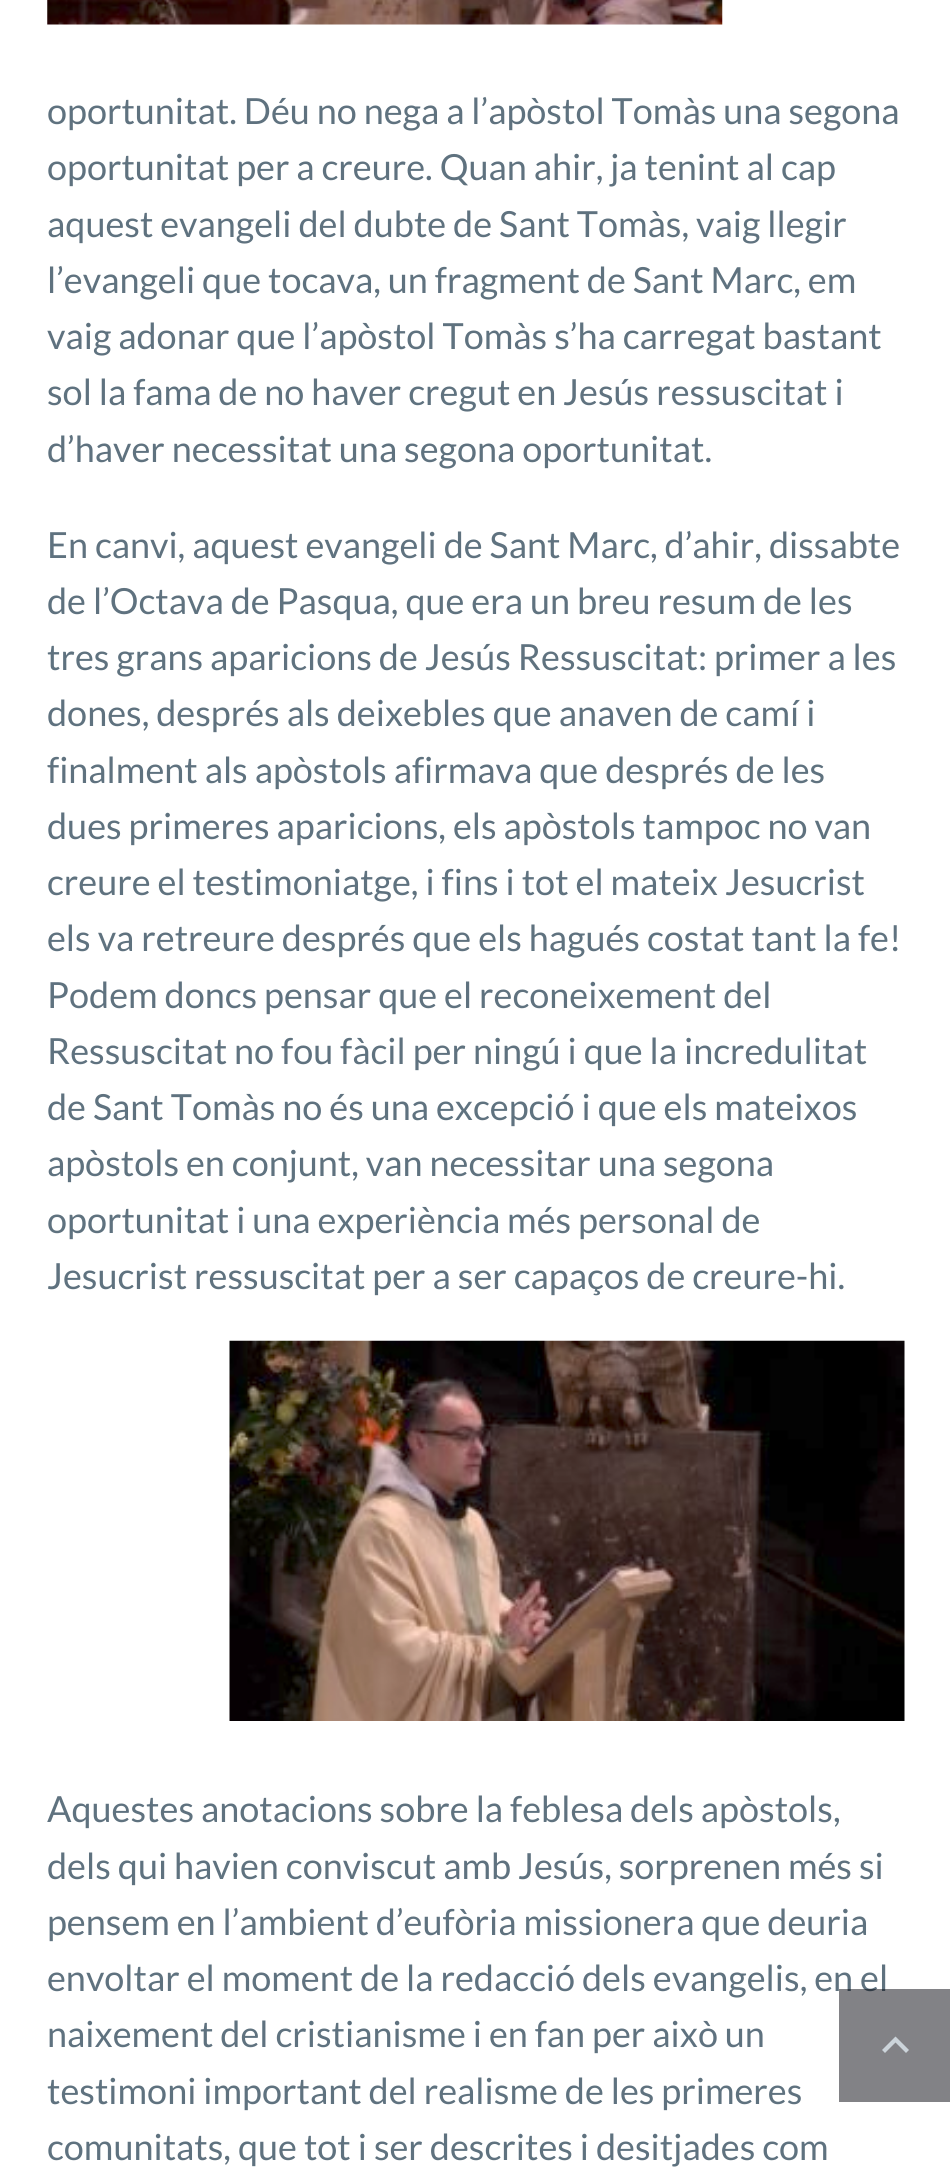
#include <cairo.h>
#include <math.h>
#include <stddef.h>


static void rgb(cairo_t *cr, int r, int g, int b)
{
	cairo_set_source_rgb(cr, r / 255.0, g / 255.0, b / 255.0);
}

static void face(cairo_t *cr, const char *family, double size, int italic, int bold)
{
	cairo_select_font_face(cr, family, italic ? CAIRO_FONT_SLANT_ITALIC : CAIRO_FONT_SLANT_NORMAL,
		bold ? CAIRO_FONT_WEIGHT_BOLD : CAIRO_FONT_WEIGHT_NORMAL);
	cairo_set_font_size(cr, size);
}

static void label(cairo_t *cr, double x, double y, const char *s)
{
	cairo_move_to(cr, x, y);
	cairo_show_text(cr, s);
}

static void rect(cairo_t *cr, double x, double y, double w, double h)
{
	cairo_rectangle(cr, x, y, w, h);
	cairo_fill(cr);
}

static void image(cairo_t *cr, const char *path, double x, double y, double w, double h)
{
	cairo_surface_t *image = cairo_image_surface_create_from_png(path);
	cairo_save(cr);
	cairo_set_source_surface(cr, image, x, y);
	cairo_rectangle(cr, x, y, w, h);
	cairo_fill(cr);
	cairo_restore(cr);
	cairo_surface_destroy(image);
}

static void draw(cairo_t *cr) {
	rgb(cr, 255, 255, 255);
	cairo_paint(cr);
	image(cr, "image0.png", 47, 0, 676, 25);
	face(cr, "Lato", 36, 0, 0);
	rgb(cr, 95, 114, 127);
	label(cr, 47, 124, "oportunitat. Déu no nega a l’apòstol Tomàs una segona");
	label(cr, 47, 180, "oportunitat per a creure. Quan ahir, ja tenint al cap");
	label(cr, 47, 237, "aquest evangeli del dubte de Sant Tomàs, vaig llegir");
	label(cr, 47, 293, "l’evangeli que tocava, un fragment de Sant Marc, em");
	label(cr, 47, 349, "vaig adonar que l’apòstol Tomàs s’ha carregat bastant");
	label(cr, 47, 405, "sol la fama de no haver cregut en Jesús ressuscitat i");
	label(cr, 47, 462, "d’haver necessitat una segona oportunitat.");
	label(cr, 47, 558, "En canvi, aquest evangeli de Sant Marc, d’ahir, dissabte");
	label(cr, 47, 614, "de l’Octava de Pasqua, que era un breu resum de les");
	label(cr, 47, 670, "tres grans aparicions de Jesús Ressuscitat: primer a les");
	label(cr, 47, 726, "dones, després als deixebles que anaven de camí i");
	label(cr, 47, 783, "finalment als apòstols afirmava que després de les");
	label(cr, 47, 839, "dues primeres aparicions, els apòstols tampoc no van");
	label(cr, 47, 895, "creure el testimoniatge, i fins i tot el mateix Jesucrist");
	label(cr, 47, 951, "els va retreure després que els hagués costat tant la fe!");
	label(cr, 47, 1008, "Podem doncs pensar que el reconeixement del");
	label(cr, 47, 1064, "Ressuscitat no fou fàcil per ningú i que la incredulitat");
	label(cr, 47, 1120, "de Sant Tomàs no és una excepció i que els mateixos");
	label(cr, 47, 1176, "apòstols en conjunt, van necessitar una segona");
	label(cr, 47, 1233, "oportunitat i una experiència més personal de");
	label(cr, 47, 1289, "Jesucrist ressuscitat per a ser capaços de creure-hi.");
	image(cr, "image1.png", 229, 1340, 676, 381);
	label(cr, 47, 1822, "Aquestes anotacions sobre la feblesa dels apòstols,");
	label(cr, 47, 1879, "dels qui havien conviscut amb Jesús, sorprenen més si");
	label(cr, 47, 1935, "pensem en l’ambient d’eufòria missionera que deuria");
	label(cr, 47, 1991, "envoltar el moment de la redacció dels evangelis, en el");
	label(cr, 47, 2047, "naixement del cristianisme i en fan per això un");
	label(cr, 47, 2104, "testimoni important del realisme de les primeres");
	label(cr, 47, 2160, "comunitats, que tot i ser descrites i desitjades com");
	cairo_set_source_rgba(cr, 0.024, 0.024, 0.059, 0.5);
	rect(cr, 839, 1989, 111, 113);
	rgb(cr, 204, 212, 218);
	cairo_new_path(cr);
	cairo_move_to(cr, 885, 2053);
	cairo_line_to(cr, 895.5, 2042.5);
	cairo_line_to(cr, 906, 2053);
	cairo_line_to(cr, 909, 2050);
	cairo_line_to(cr, 895.5, 2036.5);
	cairo_line_to(cr, 882, 2050);
	cairo_close_path(cr);
	cairo_fill(cr);
}

int main(void) {
	cairo_surface_t *surface = cairo_image_surface_create(CAIRO_FORMAT_RGB24, 950, 2179);
	cairo_t *cr = cairo_create(surface);
	cairo_font_options_t *options = cairo_font_options_create();
	cairo_font_options_set_hint_metrics(options, CAIRO_HINT_METRICS_OFF);
	cairo_font_options_set_hint_style(options, CAIRO_HINT_STYLE_NONE);
	cairo_set_font_options(cr, options);
	cairo_set_miter_limit(cr, 4);
	draw(cr);
	cairo_surface_write_to_png(surface, "render.png");
	cairo_font_options_destroy(options);
	cairo_destroy(cr);
	cairo_surface_destroy(surface);
	return 0;
}
